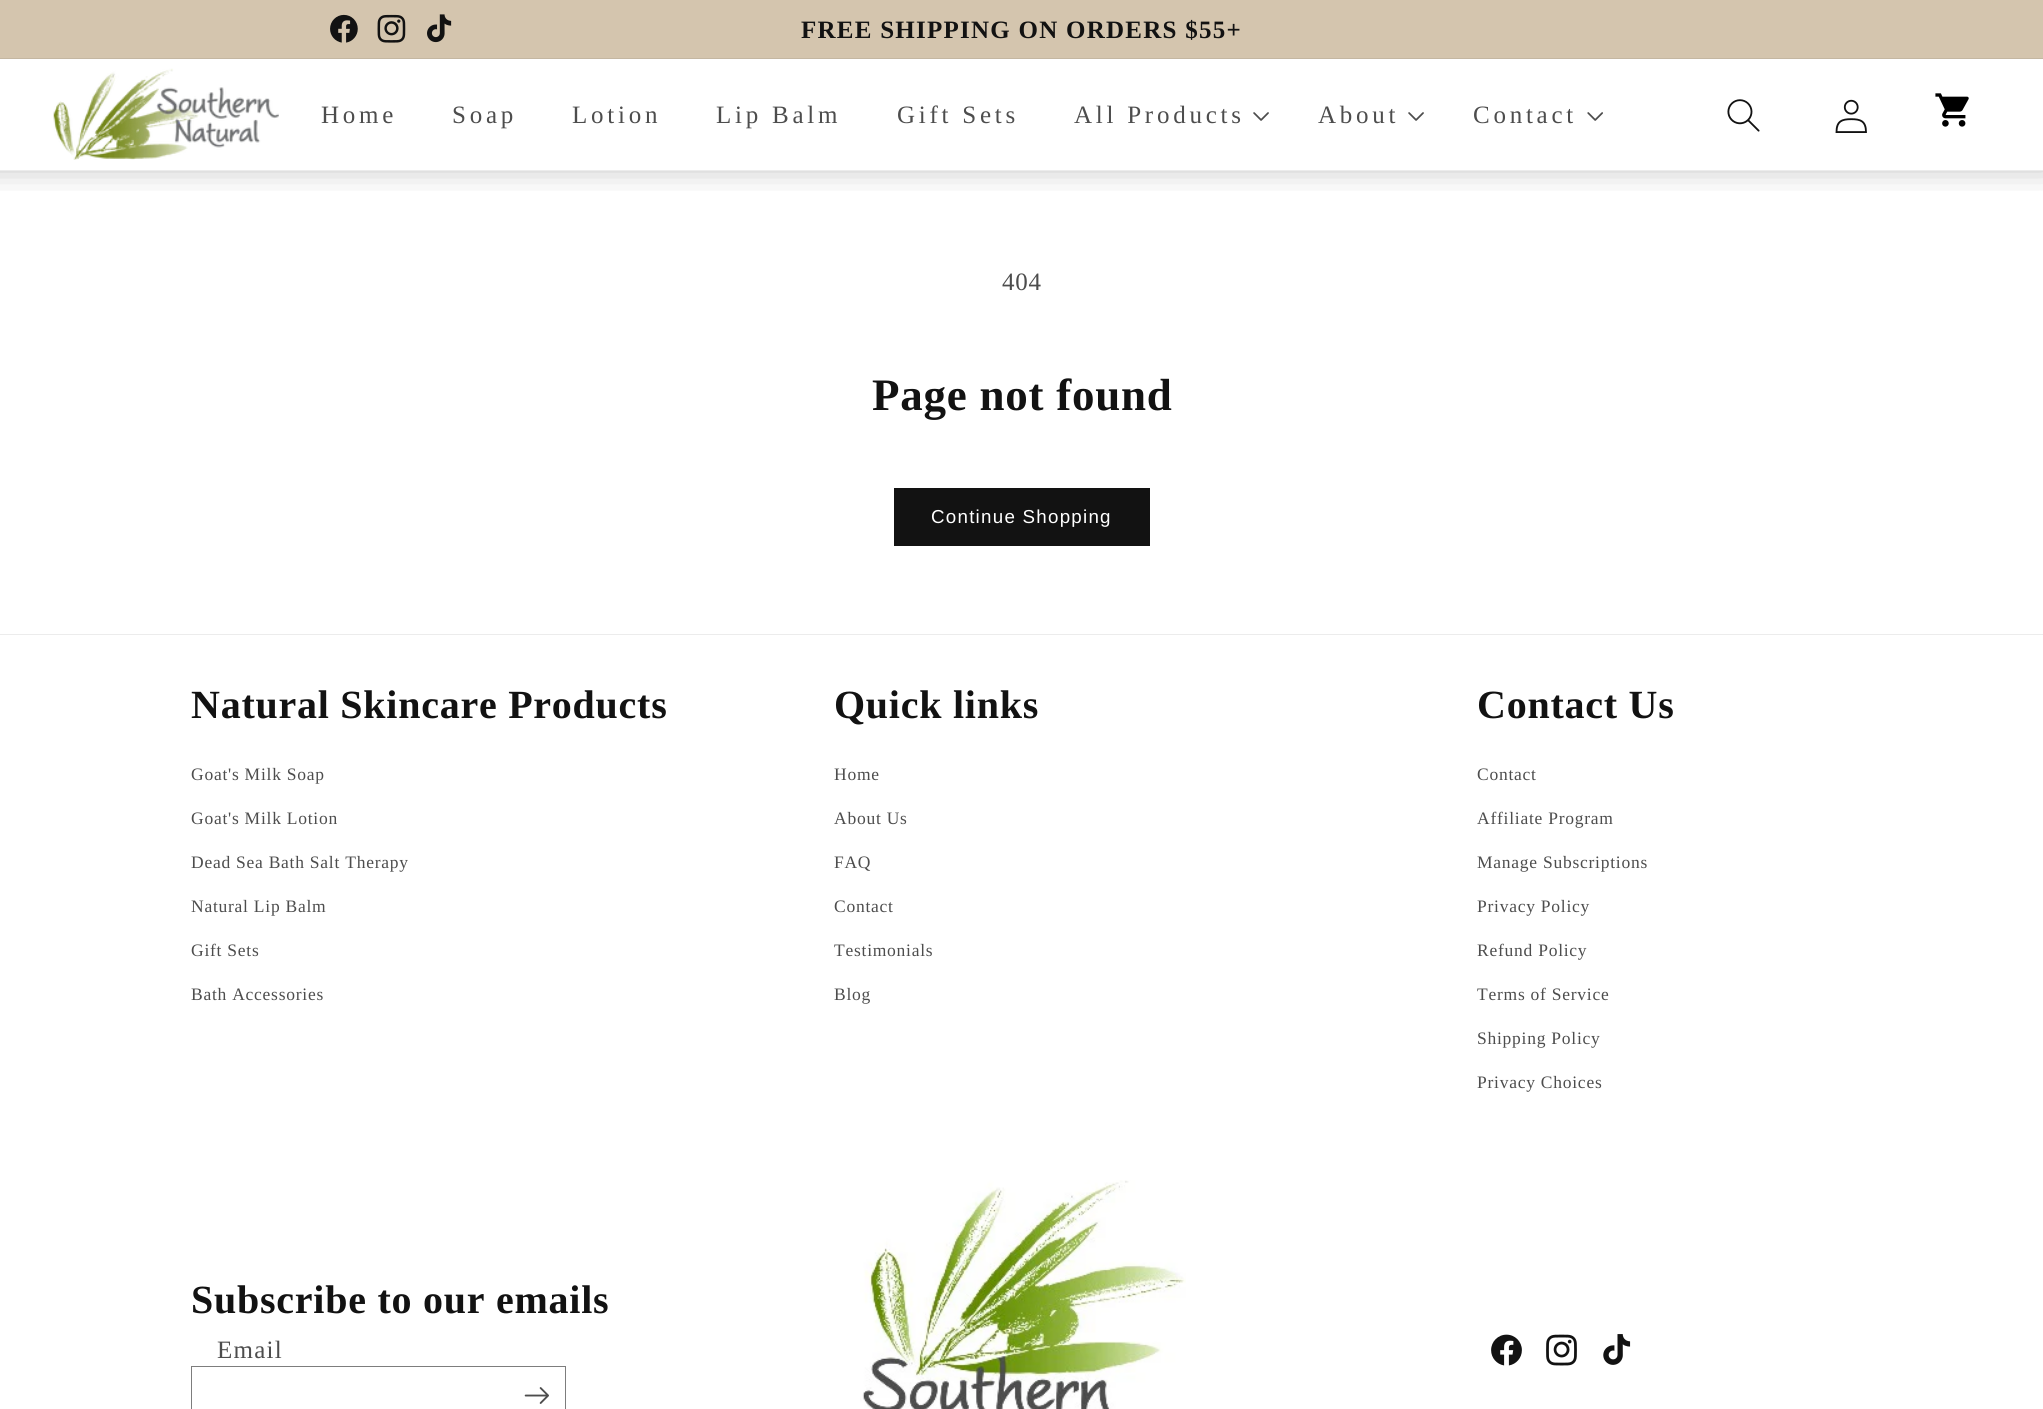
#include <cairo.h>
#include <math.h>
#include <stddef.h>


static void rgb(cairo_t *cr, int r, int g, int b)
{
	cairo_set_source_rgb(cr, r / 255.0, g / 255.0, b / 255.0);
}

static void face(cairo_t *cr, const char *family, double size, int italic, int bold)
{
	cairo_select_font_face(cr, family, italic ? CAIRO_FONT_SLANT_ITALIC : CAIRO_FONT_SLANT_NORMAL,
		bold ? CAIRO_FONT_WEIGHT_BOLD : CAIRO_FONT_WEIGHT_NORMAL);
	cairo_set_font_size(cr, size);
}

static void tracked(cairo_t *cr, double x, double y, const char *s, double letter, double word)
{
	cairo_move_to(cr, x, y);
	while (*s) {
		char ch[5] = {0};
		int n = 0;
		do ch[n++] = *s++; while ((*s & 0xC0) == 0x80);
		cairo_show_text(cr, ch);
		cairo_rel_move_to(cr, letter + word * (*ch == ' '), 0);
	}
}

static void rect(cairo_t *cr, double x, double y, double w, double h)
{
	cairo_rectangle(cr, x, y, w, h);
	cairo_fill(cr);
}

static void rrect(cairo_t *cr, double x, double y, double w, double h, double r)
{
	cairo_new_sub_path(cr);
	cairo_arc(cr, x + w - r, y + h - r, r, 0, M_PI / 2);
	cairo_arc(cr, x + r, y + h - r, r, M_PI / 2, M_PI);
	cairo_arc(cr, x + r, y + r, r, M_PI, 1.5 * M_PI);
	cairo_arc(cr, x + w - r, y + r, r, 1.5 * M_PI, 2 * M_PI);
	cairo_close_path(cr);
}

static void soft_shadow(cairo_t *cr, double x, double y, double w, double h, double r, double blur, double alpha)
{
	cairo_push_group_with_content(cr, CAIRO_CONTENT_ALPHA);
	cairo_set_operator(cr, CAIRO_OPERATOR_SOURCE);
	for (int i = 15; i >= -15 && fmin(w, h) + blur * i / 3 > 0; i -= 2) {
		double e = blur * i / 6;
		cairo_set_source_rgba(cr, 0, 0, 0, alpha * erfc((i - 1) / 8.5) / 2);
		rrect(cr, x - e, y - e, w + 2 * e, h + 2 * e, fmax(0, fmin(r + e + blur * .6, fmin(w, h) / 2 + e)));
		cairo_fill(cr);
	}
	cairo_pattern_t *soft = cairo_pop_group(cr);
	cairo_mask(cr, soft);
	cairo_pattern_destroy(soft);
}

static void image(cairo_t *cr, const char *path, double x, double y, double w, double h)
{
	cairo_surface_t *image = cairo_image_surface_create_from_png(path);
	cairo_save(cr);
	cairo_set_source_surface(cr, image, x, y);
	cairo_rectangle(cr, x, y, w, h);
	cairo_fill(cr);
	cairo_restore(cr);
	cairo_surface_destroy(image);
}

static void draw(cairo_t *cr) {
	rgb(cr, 255, 255, 255);
	cairo_paint(cr);
	cairo_save(cr);
	cairo_rectangle(cr, 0, 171, 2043, 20);
	cairo_clip(cr);
	rgb(cr, 0, 0, 0);
	soft_shadow(cr, -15, 31, 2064, 133, 0, 17.5, 0.33);
	cairo_restore(cr);
	rgb(cr, 212, 197, 174);
	rect(cr, 0, 0, 2043, 58);
	rgb(cr, 196, 183, 162);
	rect(cr, 0, 58, 2043, 1);
	image(cr, "image0.png", 330, 14, 28, 29);
	image(cr, "image1.png", 377, 14, 29, 29);
	image(cr, "image2.png", 427, 14, 25, 29);
	face(cr, "Liberation Serif", 25, 0, 1);
	rgb(cr, 18, 18, 18);
	tracked(cr, 801, 38, "FREE SHIPPING ON ORDERS $55+", 1.25, 0);
	rgb(cr, 236, 236, 236);
	rect(cr, 0, 170, 2043, 1);
	image(cr, "image3.png", 53, 68, 226, 92);
	face(cr, "Liberation Serif", 25, 0, 0);
	rgb(cr, 77, 77, 77);
	tracked(cr, 321, 123, "Home", 3.75, 0);
	tracked(cr, 452, 123, "Soap", 3.75, 0);
	tracked(cr, 572, 123, "Lotion", 3.75, 0);
	tracked(cr, 716, 123, "Lip Balm", 3.75, 0);
	tracked(cr, 897, 123, "Gift Sets", 3.75, 0);
	tracked(cr, 1074, 123, "All Products", 3.75, 0);
	image(cr, "image4.png", 1253, 112, 16, 9);
	tracked(cr, 1318, 123, "About", 3.75, 0);
	image(cr, "image4.png", 1408, 112, 16, 9);
	tracked(cr, 1473, 123, "Contact", 3.75, 0);
	image(cr, "image5.png", 1587, 112, 16, 9);
	image(cr, "image6.png", 1727, 99, 33, 33);
	image(cr, "image7.png", 1835, 99, 32, 34);
	image(cr, "image8.png", 1935, 93, 34, 34);
	tracked(cr, 1002, 290, "404", 0.75, 0);
	face(cr, "Liberation Serif", 45, 0, 1);
	rgb(cr, 18, 18, 18);
	tracked(cr, 872, 410, "Page not found", 0.75, 0);
	rect(cr, 894, 488, 256, 58);
	face(cr, "Liberation Sans", 18.75, 0, 0);
	rgb(cr, 255, 255, 255);
	tracked(cr, 931, 523, "Continue Shopping", 1.25, 0);
	rgb(cr, 236, 236, 236);
	rect(cr, 0, 634, 2043, 1);
	face(cr, "Liberation Serif", 40, 0, 1);
	rgb(cr, 18, 18, 18);
	tracked(cr, 191, 718, "Natural Skincare Products", 0.75, 0);
	face(cr, "Liberation Serif", 17.5, 0, 0);
	rgb(cr, 77, 77, 77);
	tracked(cr, 191, 780, "Goat's Milk Soap", 0.75, 0);
	tracked(cr, 191, 824, "Goat's Milk Lotion", 0.75, 0);
	tracked(cr, 191, 868, "Dead Sea Bath Salt Therapy", 0.75, 0);
	tracked(cr, 191, 912, "Natural Lip Balm", 0.75, 0);
	tracked(cr, 191, 956, "Gift Sets", 0.75, 0);
	tracked(cr, 191, 1000, "Bath Accessories", 0.75, 0);
	face(cr, "Liberation Serif", 40, 0, 1);
	rgb(cr, 18, 18, 18);
	tracked(cr, 834, 718, "Quick links", 0.75, 0);
	face(cr, "Liberation Serif", 17.5, 0, 0);
	rgb(cr, 77, 77, 77);
	tracked(cr, 834, 780, "Home", 0.75, 0);
	tracked(cr, 834, 824, "About Us", 0.75, 0);
	tracked(cr, 834, 868, "FAQ", 0.75, 0);
	tracked(cr, 834, 912, "Contact", 0.75, 0);
	tracked(cr, 834, 956, "Testimonials", 0.75, 0);
	tracked(cr, 834, 1000, "Blog", 0.75, 0);
	face(cr, "Liberation Serif", 40, 0, 1);
	rgb(cr, 18, 18, 18);
	tracked(cr, 1477, 718, "Contact Us", 0.75, 0);
	face(cr, "Liberation Serif", 17.5, 0, 0);
	rgb(cr, 77, 77, 77);
	tracked(cr, 1477, 780, "Contact", 0.75, 0);
	tracked(cr, 1477, 824, "Affiliate Program", 0.75, 0);
	tracked(cr, 1477, 868, "Manage Subscriptions", 0.75, 0);
	tracked(cr, 1477, 912, "Privacy Policy", 0.75, 0);
	tracked(cr, 1477, 956, "Refund Policy", 0.75, 0);
	tracked(cr, 1477, 1000, "Terms of Service", 0.75, 0);
	tracked(cr, 1477, 1044, "Shipping Policy", 0.75, 0);
	tracked(cr, 1477, 1088, "Privacy Choices", 0.75, 0);
	face(cr, "Liberation Serif", 40, 0, 1);
	rgb(cr, 18, 18, 18);
	tracked(cr, 191, 1313, "Subscribe to our emails", 0.75, 0);
	face(cr, "Liberation Serif", 25, 0, 0);
	rgb(cr, 77, 77, 77);
	tracked(cr, 217, 1358, "Email", 1.25, 0);
	cairo_rectangle(cr, 191.5, 1366.5, 374, 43);
	rgb(cr, 125, 125, 125);
	cairo_set_line_width(cr, 1);
	cairo_stroke(cr);
	image(cr, "image9.png", 524, 1387, 25, 17);
	image(cr, "image10.png", 860, 1180, 326, 229);
	image(cr, "image11.png", 1491, 1334, 31, 32);
	image(cr, "image12.png", 1546, 1334, 31, 32);
	image(cr, "image13.png", 1603, 1334, 28, 31);
}

int main(void) {
	cairo_surface_t *surface = cairo_image_surface_create(CAIRO_FORMAT_RGB24, 2043, 1409);
	cairo_t *cr = cairo_create(surface);
	cairo_font_options_t *options = cairo_font_options_create();
	cairo_font_options_set_hint_metrics(options, CAIRO_HINT_METRICS_OFF);
	cairo_font_options_set_hint_style(options, CAIRO_HINT_STYLE_NONE);
	cairo_set_font_options(cr, options);
	cairo_set_miter_limit(cr, 4);
	draw(cr);
	cairo_surface_write_to_png(surface, "render.png");
	cairo_font_options_destroy(options);
	cairo_destroy(cr);
	cairo_surface_destroy(surface);
	return 0;
}
